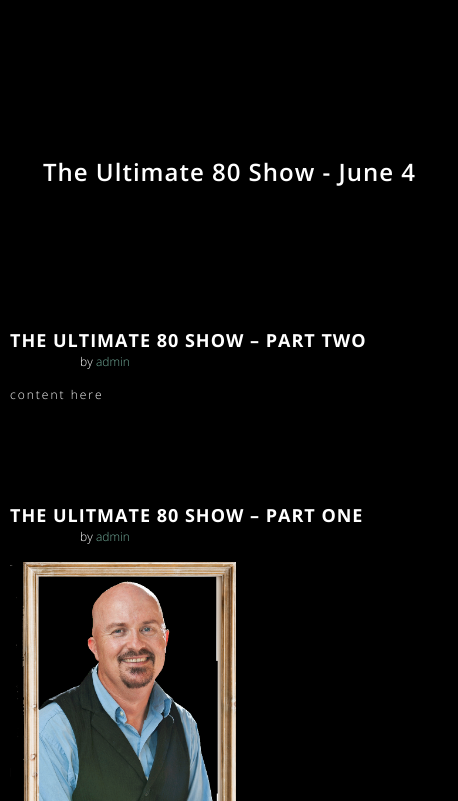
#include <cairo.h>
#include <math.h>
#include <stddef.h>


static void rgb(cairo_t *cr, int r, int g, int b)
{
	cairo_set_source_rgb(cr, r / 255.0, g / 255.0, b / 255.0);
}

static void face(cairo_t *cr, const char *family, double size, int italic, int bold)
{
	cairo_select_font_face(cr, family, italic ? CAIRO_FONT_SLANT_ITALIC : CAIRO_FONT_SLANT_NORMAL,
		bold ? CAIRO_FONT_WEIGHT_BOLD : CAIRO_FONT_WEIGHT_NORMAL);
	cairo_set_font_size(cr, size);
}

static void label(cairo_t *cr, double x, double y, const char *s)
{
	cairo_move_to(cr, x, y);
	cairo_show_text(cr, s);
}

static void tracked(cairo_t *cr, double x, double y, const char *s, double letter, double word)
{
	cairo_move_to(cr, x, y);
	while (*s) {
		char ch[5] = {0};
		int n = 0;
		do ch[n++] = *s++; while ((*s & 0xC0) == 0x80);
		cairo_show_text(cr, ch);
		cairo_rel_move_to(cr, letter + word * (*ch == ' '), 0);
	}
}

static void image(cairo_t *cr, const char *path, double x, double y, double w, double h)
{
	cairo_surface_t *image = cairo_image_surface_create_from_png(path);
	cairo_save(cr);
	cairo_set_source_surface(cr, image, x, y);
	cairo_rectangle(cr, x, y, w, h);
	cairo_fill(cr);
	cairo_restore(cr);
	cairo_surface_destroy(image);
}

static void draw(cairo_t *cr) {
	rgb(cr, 0, 0, 0);
	cairo_paint(cr);
	face(cr, "Open Sans SemiBold", 24, 0, 0);
	rgb(cr, 255, 255, 255);
	tracked(cr, 43, 181, "The Ultimate 80 Show - June 4", 1, 0);
	face(cr, "Open Sans", 18, 0, 1);
	tracked(cr, 10, 347, "THE ULTIMATE 80 SHOW – PART TWO", 1, 0);
	face(cr, "Open Sans Light", 12, 0, 0);
	label(cr, 80, 366, "by");
	rgb(cr, 115, 173, 155);
	label(cr, 96, 366, "admin");
	rgb(cr, 255, 255, 255);
	tracked(cr, 10, 399, "content here", 2, 0);
	face(cr, "Open Sans", 18, 0, 1);
	tracked(cr, 10, 522, "THE ULITMATE 80 SHOW – PART ONE", 1, 0);
	face(cr, "Open Sans Light", 12, 0, 0);
	label(cr, 80, 541, "by");
	rgb(cr, 115, 173, 155);
	label(cr, 96, 541, "admin");
	image(cr, "image0.png", 10, 562, 226, 239);
}

int main(void) {
	cairo_surface_t *surface = cairo_image_surface_create(CAIRO_FORMAT_RGB24, 458, 801);
	cairo_t *cr = cairo_create(surface);
	cairo_font_options_t *options = cairo_font_options_create();
	cairo_font_options_set_hint_metrics(options, CAIRO_HINT_METRICS_OFF);
	cairo_font_options_set_hint_style(options, CAIRO_HINT_STYLE_NONE);
	cairo_set_font_options(cr, options);
	cairo_set_miter_limit(cr, 4);
	draw(cr);
	cairo_surface_write_to_png(surface, "render.png");
	cairo_font_options_destroy(options);
	cairo_destroy(cr);
	cairo_surface_destroy(surface);
	return 0;
}
